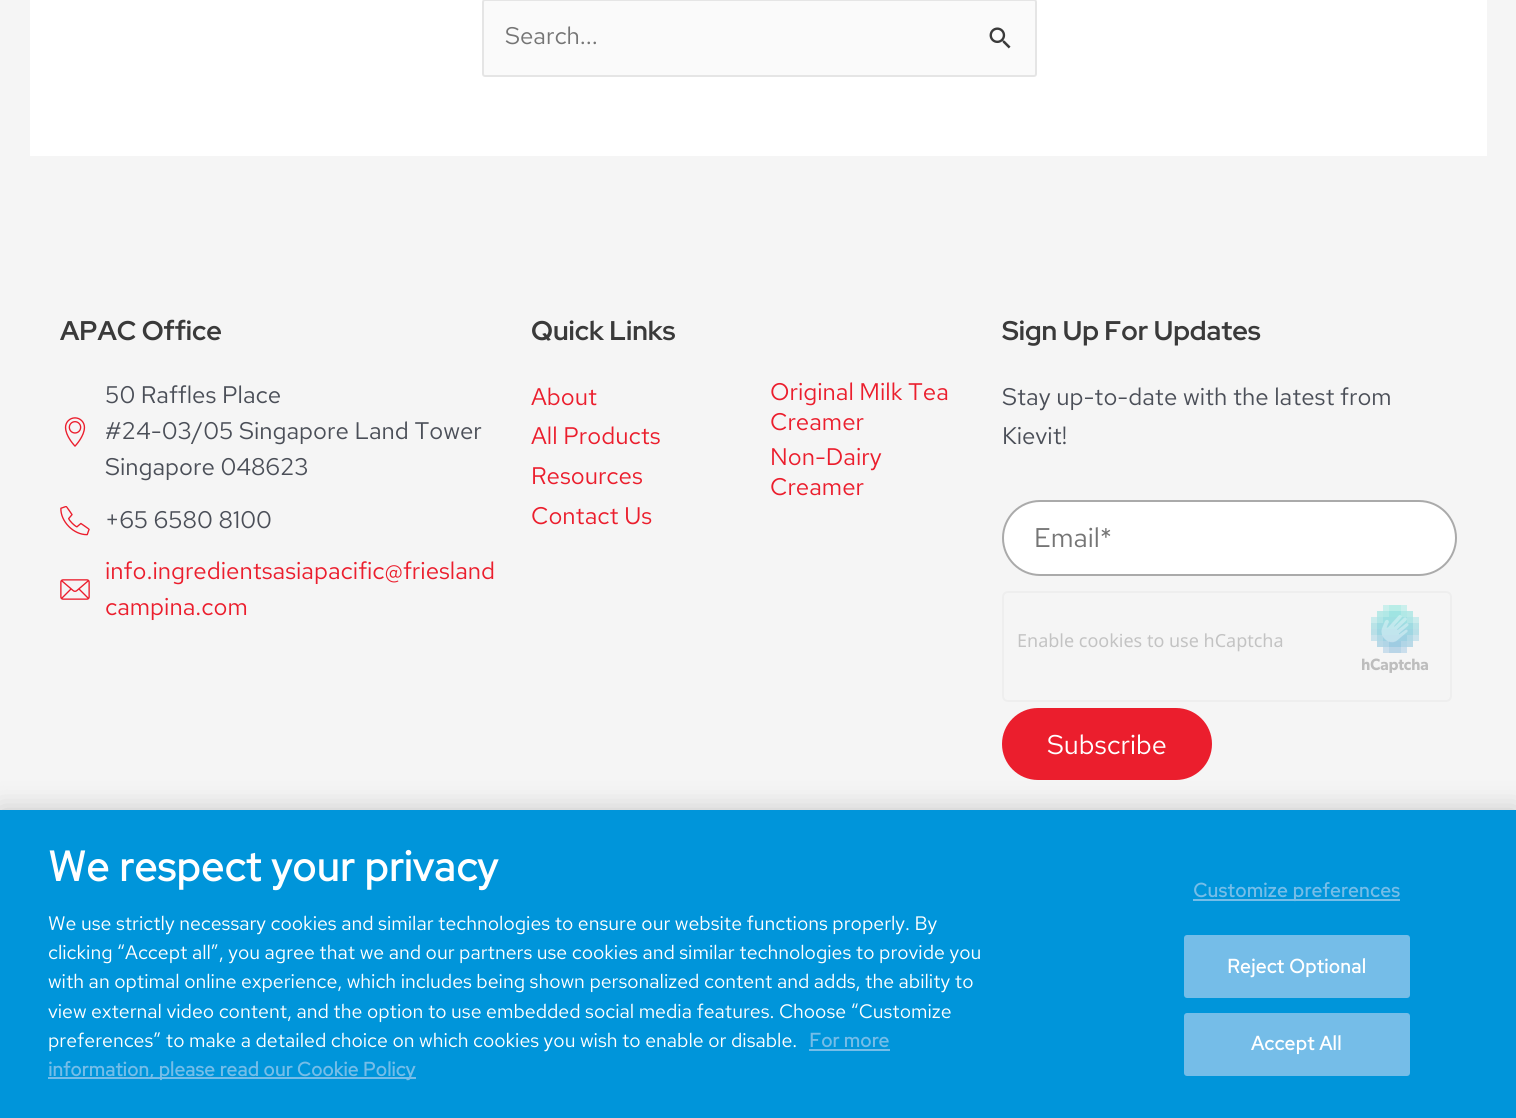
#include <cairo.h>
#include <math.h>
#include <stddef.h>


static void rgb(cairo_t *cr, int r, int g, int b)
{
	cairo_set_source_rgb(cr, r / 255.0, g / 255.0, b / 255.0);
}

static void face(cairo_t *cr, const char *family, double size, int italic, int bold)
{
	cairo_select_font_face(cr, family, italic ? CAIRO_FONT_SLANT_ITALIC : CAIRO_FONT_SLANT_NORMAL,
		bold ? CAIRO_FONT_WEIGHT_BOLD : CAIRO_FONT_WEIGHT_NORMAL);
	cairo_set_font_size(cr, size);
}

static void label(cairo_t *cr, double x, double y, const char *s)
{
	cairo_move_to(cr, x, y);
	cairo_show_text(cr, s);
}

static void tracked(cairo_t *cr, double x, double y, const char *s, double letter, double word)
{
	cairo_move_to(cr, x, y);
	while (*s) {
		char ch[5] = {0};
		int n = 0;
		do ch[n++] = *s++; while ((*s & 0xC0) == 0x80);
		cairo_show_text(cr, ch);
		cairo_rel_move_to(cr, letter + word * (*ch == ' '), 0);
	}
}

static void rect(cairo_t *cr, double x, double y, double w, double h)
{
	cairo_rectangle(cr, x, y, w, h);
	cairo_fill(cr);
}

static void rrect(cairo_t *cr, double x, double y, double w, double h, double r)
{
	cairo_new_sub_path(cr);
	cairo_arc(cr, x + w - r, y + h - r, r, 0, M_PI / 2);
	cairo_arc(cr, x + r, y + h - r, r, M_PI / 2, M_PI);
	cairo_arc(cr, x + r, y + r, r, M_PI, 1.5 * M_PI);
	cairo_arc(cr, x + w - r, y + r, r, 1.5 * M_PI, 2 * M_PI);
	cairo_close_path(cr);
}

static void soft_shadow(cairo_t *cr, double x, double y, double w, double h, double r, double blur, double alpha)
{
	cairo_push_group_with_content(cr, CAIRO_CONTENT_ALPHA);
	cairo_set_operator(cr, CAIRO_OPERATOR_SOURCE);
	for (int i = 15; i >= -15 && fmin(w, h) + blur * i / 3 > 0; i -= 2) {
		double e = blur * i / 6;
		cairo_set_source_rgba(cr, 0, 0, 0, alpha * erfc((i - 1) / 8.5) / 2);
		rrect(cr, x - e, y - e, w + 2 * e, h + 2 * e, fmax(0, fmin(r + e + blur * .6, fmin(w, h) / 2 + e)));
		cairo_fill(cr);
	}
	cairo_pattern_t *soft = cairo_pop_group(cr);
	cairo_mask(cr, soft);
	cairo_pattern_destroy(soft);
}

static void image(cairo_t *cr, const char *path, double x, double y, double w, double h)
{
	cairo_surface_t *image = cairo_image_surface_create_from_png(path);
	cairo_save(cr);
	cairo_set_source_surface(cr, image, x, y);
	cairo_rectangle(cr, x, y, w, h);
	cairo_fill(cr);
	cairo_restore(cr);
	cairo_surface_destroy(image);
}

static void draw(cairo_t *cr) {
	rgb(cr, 245, 245, 245);
	cairo_paint(cr);
	rgb(cr, 255, 255, 255);
	rect(cr, 30, 0, 1457, 156);
	rgb(cr, 250, 250, 250);
	rrect(cr, 483, 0, 553, 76, 2);
	cairo_fill_preserve(cr);
	rgb(cr, 229, 229, 229);
	cairo_stroke(cr);
	face(cr, "Red Hat Text", 24, 0, 0);
	rgb(cr, 117, 117, 117);
	label(cr, 505, 44, "Search...");
	image(cr, "image0.png", 989, 27, 22, 22);
	face(cr, "Red Hat Display", 27, 0, 1);
	rgb(cr, 58, 58, 58);
	label(cr, 60, 340, "APAC Office");
	image(cr, "image1.png", 64, 417, 22, 30);
	face(cr, "Red Hat Text", 24, 0, 0);
	rgb(cr, 75, 79, 88);
	label(cr, 105, 403, "50 Raffles Place");
	label(cr, 105, 439, "#24-03/05 Singapore Land Tower");
	label(cr, 105, 475, "Singapore 048623");
	image(cr, "image2.png", 60, 506, 30, 30);
	label(cr, 105, 528, "+65 6580 8100");
	image(cr, "image3.png", 60, 579, 30, 21);
	rgb(cr, 235, 30, 45);
	label(cr, 105, 579, "info.ingredientsasiapacific@friesland");
	label(cr, 105, 615, "campina.com");
	face(cr, "Red Hat Display", 27, 0, 1);
	rgb(cr, 58, 58, 58);
	label(cr, 531, 340, "Quick Links");
	face(cr, "Red Hat Text", 24, 0, 0);
	rgb(cr, 235, 30, 45);
	label(cr, 531, 405, "About");
	label(cr, 531, 444, "All Products");
	label(cr, 531, 484, "Resources");
	label(cr, 531, 524, "Contact Us");
	label(cr, 770, 400, "Original Milk Tea");
	label(cr, 770, 430, "Creamer");
	label(cr, 770, 465, "Non-Dairy");
	label(cr, 770, 495, "Creamer");
	face(cr, "Red Hat Display", 27, 0, 1);
	rgb(cr, 58, 58, 58);
	label(cr, 1002, 340, "Sign Up For Updates");
	face(cr, "Red Hat Text", 24, 0, 0);
	rgb(cr, 75, 79, 88);
	label(cr, 1002, 405, "Stay up-to-date with the latest from");
	label(cr, 1002, 444, "Kievit!");
	rgb(cr, 255, 255, 255);
	rrect(cr, 1003, 501, 453, 74, 37);
	cairo_fill_preserve(cr);
	rgb(cr, 170, 170, 170);
	cairo_stroke(cr);
	face(cr, "Red Hat Text", 27, 0, 0);
	rgb(cr, 117, 117, 117);
	label(cr, 1034, 547, "Email*");
	image(cr, "image4.png", 1362, 605, 66, 68);
	rrect(cr, 1003, 592, 448, 109, 5);
	rgb(cr, 238, 238, 238);
	cairo_stroke(cr);
	face(cr, "Noto Sans", 18, 0, 0);
	rgb(cr, 195, 195, 195);
	label(cr, 1017, 647, "Enable cookies to use hCaptcha");
	rgb(cr, 235, 30, 45);
	rrect(cr, 1002, 708, 210, 72, 36);
	cairo_fill(cr);
	face(cr, "Red Hat Text", 27, 0, 0);
	rgb(cr, 255, 255, 255);
	label(cr, 1047, 754, "Subscribe");
	rgb(cr, 0, 0, 0);
	soft_shadow(cr, 0, 810, 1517, 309, 0, 13.5, 0.2);
	rgb(cr, 0, 149, 218);
	rect(cr, 0, 810, 1516, 308);
	face(cr, "Red Hat Text", 42, 0, 1);
	rgb(cr, 255, 255, 255);
	label(cr, 48, 881, "We respect your privacy");
	face(cr, "Red Hat Text", 19.5, 0, 0);
	label(cr, 48, 930, "We use strictly necessary cookies and similar technologies to ensure our website functions properly. By");
	label(cr, 48, 959, "clicking “Accept all”, you agree that we and our partners use cookies and similar technologies to provide you");
	label(cr, 48, 988, "with an optimal online experience, which includes being shown personalized content and adds, the ability to");
	label(cr, 48, 1018, "view external video content, and the option to use embedded social media features. Choose “Customize");
	label(cr, 48, 1047, "preferences” to make a detailed choice on which cookies you wish to enable or disable.");
	face(cr, "Red Hat Text", 19.5, 0, 1);
	rgb(cr, 117, 189, 232);
	label(cr, 809, 1047, "For more");
	rect(cr, 809, 1049, 81, 2);
	rect(cr, 48, 1077, 368, 2);
	label(cr, 48, 1076, "information, please read our Cookie Policy");
	rect(cr, 1193, 899, 207, 2);
	tracked(cr, 1193, 897, "Customize preferences", 0.2, 0);
	rrect(cr, 1185, 936, 224, 61, 2);
	cairo_fill_preserve(cr);
	cairo_stroke(cr);
	rgb(cr, 255, 255, 255);
	tracked(cr, 1227, 973, "Reject Optional", 0.2, 0);
	rgb(cr, 117, 189, 232);
	rrect(cr, 1185, 1014, 224, 61, 2);
	cairo_fill_preserve(cr);
	cairo_stroke(cr);
	rgb(cr, 255, 255, 255);
	tracked(cr, 1251, 1050, "Accept All", 0.2, 0);
}

int main(void) {
	cairo_surface_t *surface = cairo_image_surface_create(CAIRO_FORMAT_RGB24, 1516, 1118);
	cairo_t *cr = cairo_create(surface);
	cairo_font_options_t *options = cairo_font_options_create();
	cairo_font_options_set_hint_metrics(options, CAIRO_HINT_METRICS_OFF);
	cairo_font_options_set_hint_style(options, CAIRO_HINT_STYLE_NONE);
	cairo_set_font_options(cr, options);
	cairo_set_miter_limit(cr, 4);
	draw(cr);
	cairo_surface_write_to_png(surface, "render.png");
	cairo_font_options_destroy(options);
	cairo_destroy(cr);
	cairo_surface_destroy(surface);
	return 0;
}
